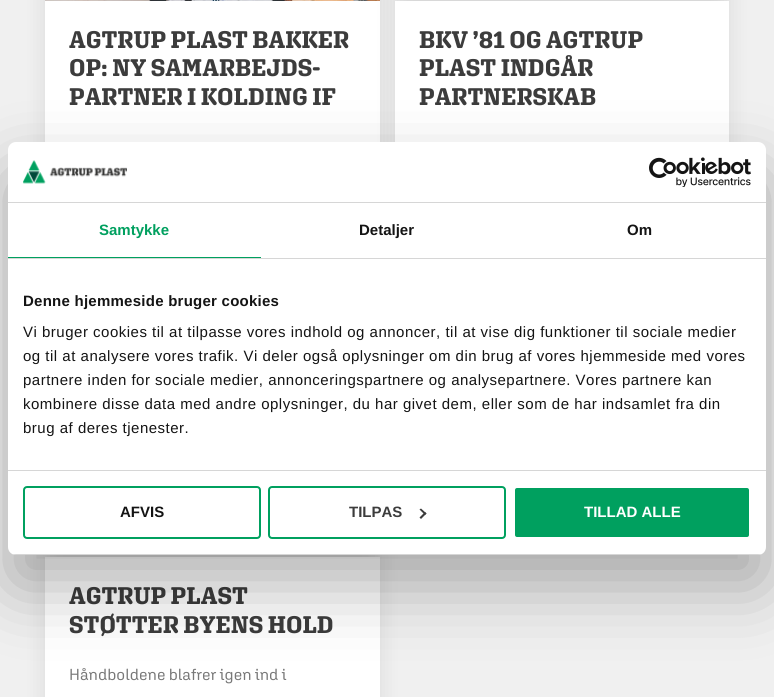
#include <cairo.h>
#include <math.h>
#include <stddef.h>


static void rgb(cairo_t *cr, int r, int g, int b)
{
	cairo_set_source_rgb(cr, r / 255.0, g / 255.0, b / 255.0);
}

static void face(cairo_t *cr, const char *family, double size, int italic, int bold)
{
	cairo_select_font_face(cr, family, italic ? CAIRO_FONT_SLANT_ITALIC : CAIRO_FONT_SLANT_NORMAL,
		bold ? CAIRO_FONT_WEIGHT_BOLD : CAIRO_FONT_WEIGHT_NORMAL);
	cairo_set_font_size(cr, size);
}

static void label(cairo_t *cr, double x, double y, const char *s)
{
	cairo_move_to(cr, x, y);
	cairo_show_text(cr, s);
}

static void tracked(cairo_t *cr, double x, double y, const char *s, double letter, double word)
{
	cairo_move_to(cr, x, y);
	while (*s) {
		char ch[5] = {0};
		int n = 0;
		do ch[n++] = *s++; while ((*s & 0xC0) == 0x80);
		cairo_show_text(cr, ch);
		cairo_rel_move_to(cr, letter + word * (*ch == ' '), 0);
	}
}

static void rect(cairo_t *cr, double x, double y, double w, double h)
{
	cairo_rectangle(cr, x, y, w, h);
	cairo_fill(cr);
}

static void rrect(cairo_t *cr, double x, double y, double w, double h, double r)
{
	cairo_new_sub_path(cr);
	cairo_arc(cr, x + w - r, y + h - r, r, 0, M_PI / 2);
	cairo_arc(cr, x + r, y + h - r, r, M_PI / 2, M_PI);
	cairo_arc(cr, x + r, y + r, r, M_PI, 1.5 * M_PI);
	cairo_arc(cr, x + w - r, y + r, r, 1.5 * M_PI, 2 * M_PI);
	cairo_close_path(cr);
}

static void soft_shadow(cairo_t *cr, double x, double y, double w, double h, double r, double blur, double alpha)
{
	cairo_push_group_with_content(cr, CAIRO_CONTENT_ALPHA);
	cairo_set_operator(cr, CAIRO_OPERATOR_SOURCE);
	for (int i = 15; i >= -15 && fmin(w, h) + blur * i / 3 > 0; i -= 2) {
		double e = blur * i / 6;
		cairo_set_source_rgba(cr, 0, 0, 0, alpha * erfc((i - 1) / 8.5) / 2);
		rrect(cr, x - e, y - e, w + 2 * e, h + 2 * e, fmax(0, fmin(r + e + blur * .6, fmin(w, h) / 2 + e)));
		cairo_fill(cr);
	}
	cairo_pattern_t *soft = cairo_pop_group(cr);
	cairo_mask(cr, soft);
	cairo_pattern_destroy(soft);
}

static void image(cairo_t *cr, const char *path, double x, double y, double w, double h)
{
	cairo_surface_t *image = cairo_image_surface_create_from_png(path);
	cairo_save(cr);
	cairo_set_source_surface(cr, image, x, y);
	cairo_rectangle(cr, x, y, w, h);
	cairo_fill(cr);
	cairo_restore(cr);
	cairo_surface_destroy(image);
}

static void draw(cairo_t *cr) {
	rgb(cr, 240, 240, 240);
	cairo_paint(cr);
	rgb(cr, 0, 0, 0);
	soft_shadow(cr, 45, -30, 335, 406, 0, 10, 0.1);
	image(cr, "image0.png", 45, 0, 335, 1);
	rgb(cr, 255, 255, 255);
	rect(cr, 45, 1, 335, 141);
	face(cr, "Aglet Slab", 24, 0, 1);
	rgb(cr, 60, 60, 60);
	label(cr, 69, 48, "AGTRUP PLAST BAKKER");
	label(cr, 69, 76, "OP: NY SAMARBEJDS-");
	label(cr, 69, 105, "PARTNER I KOLDING IF");
	rgb(cr, 0, 0, 0);
	soft_shadow(cr, 395, -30, 334, 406, 0, 10, 0.1);
	rgb(cr, 255, 255, 255);
	rect(cr, 395, 1, 334, 141);
	rgb(cr, 60, 60, 60);
	label(cr, 419, 48, "BKV ’81 OG AGTRUP");
	label(cr, 419, 76, "PLAST INDGÅR");
	label(cr, 419, 105, "PARTNERSKAB");
	rgb(cr, 0, 0, 0);
	soft_shadow(cr, 45, 391, 335, 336, 0, 10, 0.1);
	rgb(cr, 255, 255, 255);
	rect(cr, 45, 557, 335, 140);
	rgb(cr, 60, 60, 60);
	label(cr, 69, 604, "AGTRUP PLAST");
	label(cr, 69, 633, "STØTTER BYENS HOLD");
	face(cr, "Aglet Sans", 16, 0, 0);
	rgb(cr, 120, 120, 120);
	label(cr, 69, 680, "Håndboldene blafrer igen ind i");
	rgb(cr, 0, 0, 0);
	soft_shadow(cr, 8, 174, 758, 413, 8, 34, 0.3);
	rgb(cr, 255, 255, 255);
	rrect(cr, 8, 142, 758, 413, 8);
	cairo_fill(cr);
	rgb(cr, 214, 214, 214);
	rect(cr, 8, 202, 758, 1);
	image(cr, "image1.png", 23, 160, 104, 24);
	image(cr, "image2.png", 649, 157, 102, 30);
	rect(cr, 8, 258, 758, 1);
	rgb(cr, 0, 160, 95);
	rect(cr, 8, 257, 253, 1);
	face(cr, "Liberation Sans", 15, 0, 1);
	label(cr, 99, 235, "Samtykke");
	rgb(cr, 20, 20, 20);
	label(cr, 359, 235, "Detaljer");
	label(cr, 627, 235, "Om");
	rgb(cr, 214, 214, 214);
	rect(cr, 8, 470, 758, 1);
	rgb(cr, 20, 20, 20);
	tracked(cr, 23, 306, "Denne hjemmeside bruger cookies", 0.25, 0);
	face(cr, "Liberation Sans", 15, 0, 0);
	tracked(cr, 23, 337, "Vi bruger cookies til at tilpasse vores indhold og annoncer, til at vise dig funktioner til sociale medier", 0.5, 0);
	tracked(cr, 23, 361, "og til at analysere vores trafik. Vi deler også oplysninger om din brug af vores hjemmeside med vores", 0.5, 0);
	tracked(cr, 23, 385, "partnere inden for sociale medier, annonceringspartnere og analysepartnere. Vores partnere kan", 0.5, 0);
	tracked(cr, 23, 409, "kombinere disse data med andre oplysninger, du har givet dem, eller som de har indsamlet fra din", 0.5, 0);
	tracked(cr, 23, 433, "brug af deres tjenester.", 0.5, 0);
	cairo_save(cr);
	rrect(cr, 8, 142, 758, 413, 8);
	cairo_clip(cr);
	rgb(cr, 214, 214, 214);
	rect(cr, 8, 554, 758, 1);
	cairo_restore(cr);
	rrect(cr, 24, 487, 236, 51, 3);
	rgb(cr, 0, 160, 95);
	cairo_stroke(cr);
	face(cr, "Liberation Sans", 15, 0, 1);
	rgb(cr, 20, 20, 20);
	label(cr, 120, 517, "AFVIS");
	rrect(cr, 269, 487, 236, 51, 3);
	rgb(cr, 0, 160, 95);
	cairo_stroke(cr);
	rgb(cr, 60, 60, 60);
	label(cr, 349, 517, "TILPAS");
	cairo_new_path(cr);
	cairo_move_to(cr, 421, 508.5);
	cairo_line_to(cr, 426.5, 513.5);
	cairo_line_to(cr, 425, 515);
	cairo_line_to(cr, 419.5, 509.5);
	cairo_close_path(cr);
	cairo_fill(cr);
	cairo_new_path(cr);
	cairo_move_to(cr, 425, 512);
	cairo_line_to(cr, 426.5, 513.5);
	cairo_line_to(cr, 421, 519);
	cairo_line_to(cr, 419.5, 517.5);
	cairo_close_path(cr);
	cairo_fill(cr);
	rgb(cr, 0, 160, 95);
	rrect(cr, 514, 487, 236, 51, 3);
	cairo_fill_preserve(cr);
	rgb(cr, 255, 255, 255);
	cairo_stroke(cr);
	label(cr, 584, 517, "TILLAD ALLE");
}

int main(void) {
	cairo_surface_t *surface = cairo_image_surface_create(CAIRO_FORMAT_RGB24, 774, 697);
	cairo_t *cr = cairo_create(surface);
	cairo_font_options_t *options = cairo_font_options_create();
	cairo_font_options_set_hint_metrics(options, CAIRO_HINT_METRICS_OFF);
	cairo_font_options_set_hint_style(options, CAIRO_HINT_STYLE_NONE);
	cairo_set_font_options(cr, options);
	cairo_set_miter_limit(cr, 4);
	draw(cr);
	cairo_surface_write_to_png(surface, "render.png");
	cairo_font_options_destroy(options);
	cairo_destroy(cr);
	cairo_surface_destroy(surface);
	return 0;
}
